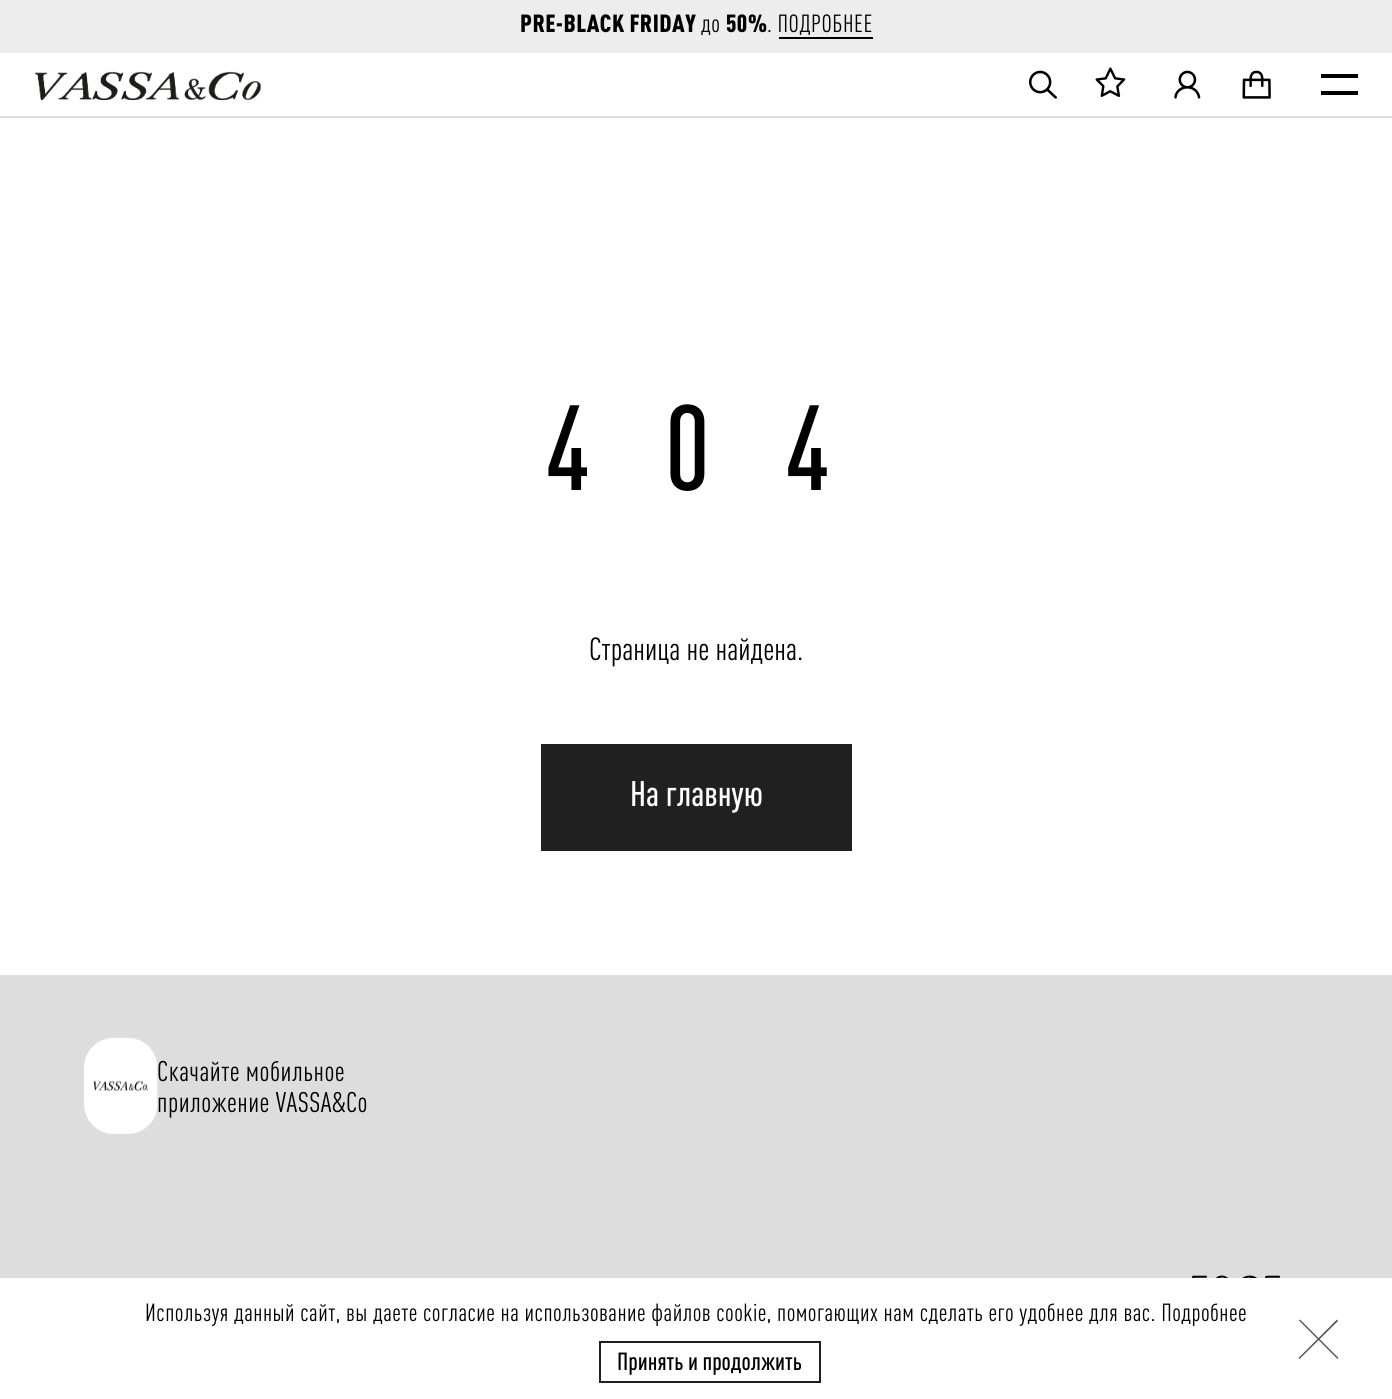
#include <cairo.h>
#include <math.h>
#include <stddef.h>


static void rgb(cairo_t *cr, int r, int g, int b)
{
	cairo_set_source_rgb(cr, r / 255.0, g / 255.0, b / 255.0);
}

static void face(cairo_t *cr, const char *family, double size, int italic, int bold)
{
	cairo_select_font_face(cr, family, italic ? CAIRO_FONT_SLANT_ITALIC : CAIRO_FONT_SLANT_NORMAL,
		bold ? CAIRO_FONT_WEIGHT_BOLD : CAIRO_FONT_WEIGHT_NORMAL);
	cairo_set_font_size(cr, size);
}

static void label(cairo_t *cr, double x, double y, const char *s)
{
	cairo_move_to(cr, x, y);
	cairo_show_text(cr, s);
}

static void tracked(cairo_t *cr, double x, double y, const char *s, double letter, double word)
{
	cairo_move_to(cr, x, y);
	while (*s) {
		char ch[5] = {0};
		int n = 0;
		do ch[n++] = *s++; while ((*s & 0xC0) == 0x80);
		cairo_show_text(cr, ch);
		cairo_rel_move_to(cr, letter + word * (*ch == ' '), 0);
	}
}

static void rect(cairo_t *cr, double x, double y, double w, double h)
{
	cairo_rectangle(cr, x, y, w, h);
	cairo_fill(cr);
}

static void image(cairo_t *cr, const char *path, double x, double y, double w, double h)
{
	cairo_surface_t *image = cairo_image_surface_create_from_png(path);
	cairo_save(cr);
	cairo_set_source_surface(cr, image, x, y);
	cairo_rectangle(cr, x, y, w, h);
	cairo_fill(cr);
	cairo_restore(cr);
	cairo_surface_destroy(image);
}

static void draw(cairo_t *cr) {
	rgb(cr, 237, 237, 237);
	cairo_paint(cr);
	face(cr, "DIN Black", 24.5, 0, 0);
	rgb(cr, 0, 0, 0);
	tracked(cr, 520, 32, "PRE-BLACK FRIDAY", 0.47, 0);
	face(cr, "DIN", 24.5, 0, 0);
	tracked(cr, 701, 32, "до", 0.47, 0);
	face(cr, "DIN Black", 24.5, 0, 0);
	tracked(cr, 726, 32, "50%", 0.47, 0);
	face(cr, "DIN", 24.5, 0, 0);
	tracked(cr, 767, 32, ". ПОДРОБНЕЕ", 0.47, 0);
	rect(cr, 779, 37, 94, 2);
	rgb(cr, 255, 255, 255);
	rect(cr, 0, 53, 1392, 922);
	rgb(cr, 221, 221, 221);
	rect(cr, 0, 116, 1392, 2);
	image(cr, "image0.png", 1029, 70, 28, 29);
	image(cr, "image1.png", 1095, 67, 31, 30);
	image(cr, "image2.png", 1174, 70, 27, 29);
	image(cr, "image3.png", 1242, 70, 29, 29);
	rgb(cr, 0, 0, 0);
	rect(cr, 1321, 74, 37, 4);
	rect(cr, 1321, 91, 37, 4);
	image(cr, "image4.png", 35, 71, 226, 30);
	face(cr, "DIN Medium", 119, 0, 0);
	tracked(cr, 545, 490, "404", 74.5, 0);
	face(cr, "DIN", 31.5, 0, 0);
	label(cr, 589, 660, "Страница не найдена.");
	rgb(cr, 32, 32, 32);
	rect(cr, 541, 744, 311, 107);
	face(cr, "DIN Medium", 35, 0, 0);
	rgb(cr, 255, 255, 255);
	label(cr, 630, 806, "На главную");
	rect(cr, 0, 1278, 1392, 121);
	face(cr, "DIN", 24.5, 0, 0);
	rgb(cr, 0, 0, 0);
	tracked(cr, 145, 1321, "Используя данный сайт, вы даете согласие на использование файлов cookie, помогающих нам сделать его удобнее для вас. Подробнее", 0.47, 0);
	cairo_rectangle(cr, 600, 1342, 220, 40);
	rgb(cr, 32, 32, 32);
	cairo_stroke(cr);
	face(cr, "DIN Medium", 24.5, 0, 0);
	rgb(cr, 0, 0, 0);
	label(cr, 617, 1370, "Принять и продолжить");
	rgb(cr, 84, 84, 84);
	cairo_new_path(cr);
	cairo_move_to(cr, 1300, 1319.5);
	cairo_line_to(cr, 1338.5, 1358);
	cairo_line_to(cr, 1337.5, 1359);
	cairo_line_to(cr, 1299, 1320.5);
	cairo_close_path(cr);
	cairo_fill(cr);
	cairo_new_path(cr);
	cairo_move_to(cr, 1298.5, 1358);
	cairo_line_to(cr, 1337, 1319.5);
	cairo_line_to(cr, 1338, 1321);
	cairo_line_to(cr, 1299.5, 1359);
	cairo_close_path(cr);
	cairo_fill(cr);
	rgb(cr, 221, 221, 221);
	rect(cr, 0, 975, 1392, 303);
	image(cr, "image5.png", 84, 1037, 74, 97);
	face(cr, "DIN", 28, 0, 0);
	rgb(cr, 0, 0, 0);
	tracked(cr, 157, 1081, "Скачайте мобильное", 0.47, 0);
	tracked(cr, 157, 1112, "приложение VASSA&Co", 0.47, 0);
	image(cr, "image6.png", 1192, 1275, 89, 3);
}

int main(void) {
	cairo_surface_t *surface = cairo_image_surface_create(CAIRO_FORMAT_RGB24, 1392, 1399);
	cairo_t *cr = cairo_create(surface);
	cairo_font_options_t *options = cairo_font_options_create();
	cairo_font_options_set_hint_metrics(options, CAIRO_HINT_METRICS_OFF);
	cairo_font_options_set_hint_style(options, CAIRO_HINT_STYLE_NONE);
	cairo_set_font_options(cr, options);
	cairo_set_miter_limit(cr, 4);
	draw(cr);
	cairo_surface_write_to_png(surface, "render.png");
	cairo_font_options_destroy(options);
	cairo_destroy(cr);
	cairo_surface_destroy(surface);
	return 0;
}
